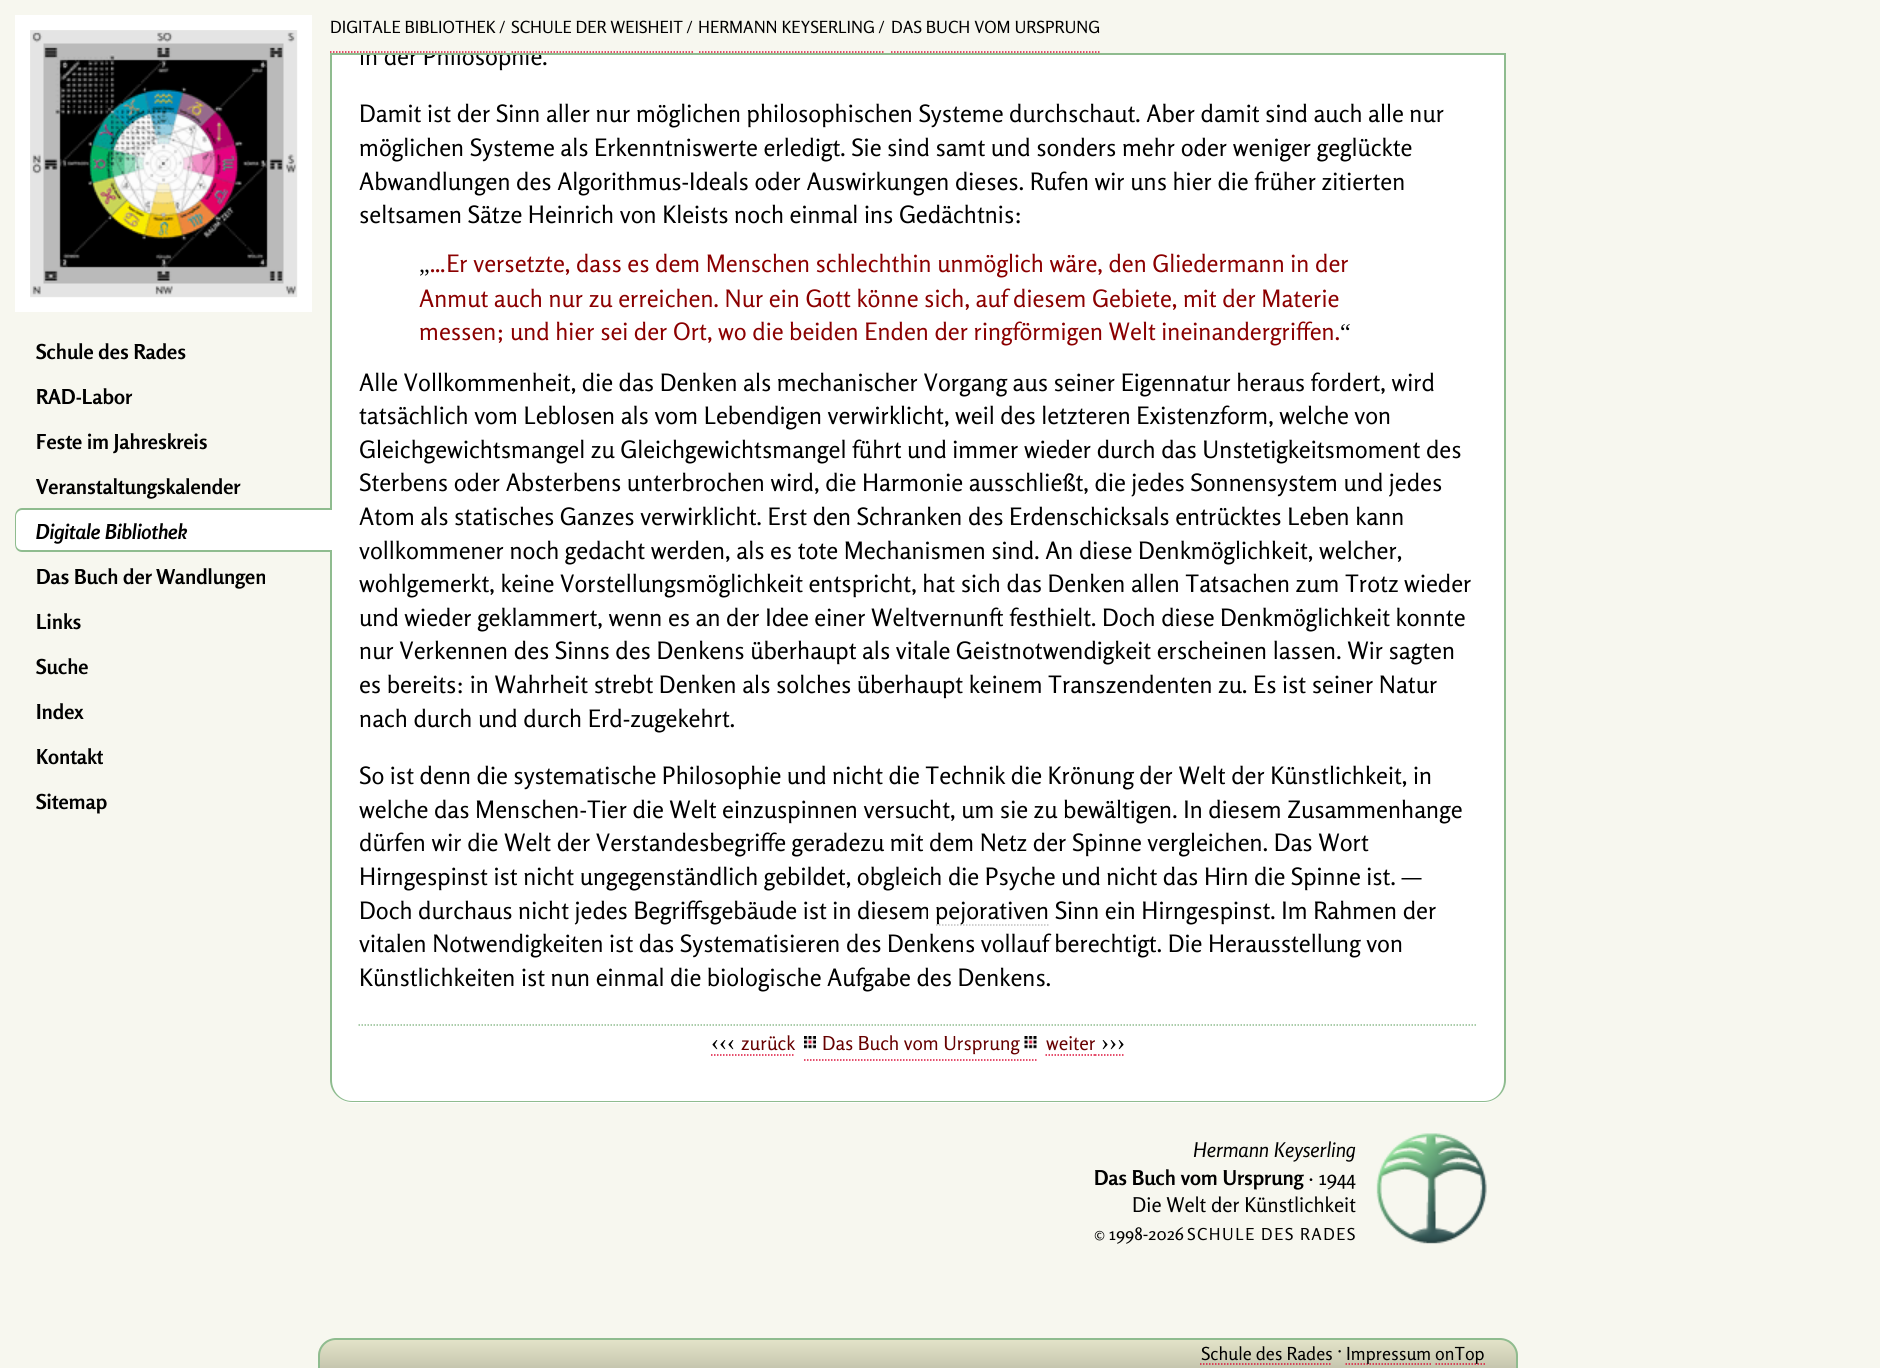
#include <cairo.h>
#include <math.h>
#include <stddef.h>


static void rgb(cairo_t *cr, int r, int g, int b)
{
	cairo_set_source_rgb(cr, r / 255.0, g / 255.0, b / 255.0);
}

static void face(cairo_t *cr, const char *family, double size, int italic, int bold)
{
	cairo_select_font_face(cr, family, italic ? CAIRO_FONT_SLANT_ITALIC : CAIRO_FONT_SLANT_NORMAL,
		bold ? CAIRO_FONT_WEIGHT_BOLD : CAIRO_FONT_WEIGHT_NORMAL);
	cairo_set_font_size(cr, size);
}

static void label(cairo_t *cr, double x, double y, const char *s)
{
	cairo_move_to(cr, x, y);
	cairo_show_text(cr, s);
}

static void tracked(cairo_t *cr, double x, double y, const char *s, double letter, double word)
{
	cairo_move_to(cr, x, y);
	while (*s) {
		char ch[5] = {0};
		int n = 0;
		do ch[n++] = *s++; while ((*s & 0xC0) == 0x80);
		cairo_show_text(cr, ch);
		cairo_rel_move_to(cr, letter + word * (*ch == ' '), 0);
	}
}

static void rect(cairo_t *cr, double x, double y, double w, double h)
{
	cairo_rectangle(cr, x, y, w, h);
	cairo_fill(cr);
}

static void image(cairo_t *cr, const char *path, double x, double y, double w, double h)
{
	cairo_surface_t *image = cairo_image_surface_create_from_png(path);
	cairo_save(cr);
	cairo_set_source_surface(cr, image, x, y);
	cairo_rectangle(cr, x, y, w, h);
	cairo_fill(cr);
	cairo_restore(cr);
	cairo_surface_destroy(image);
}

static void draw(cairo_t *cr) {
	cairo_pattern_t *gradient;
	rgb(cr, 247, 247, 239);
	cairo_paint(cr);
	cairo_rectangle(cr, 22.5, 22.5, 282, 282);
	rgb(cr, 255, 255, 255);
	cairo_set_line_width(cr, 15);
	cairo_stroke(cr);
	image(cr, "image0.png", 30, 30, 268, 268);
	face(cr, "Rosario", 20.5, 0, 1);
	rgb(cr, 0, 0, 0);
	label(cr, 36, 359, "Schule des Rades");
	label(cr, 36, 404, "RAD-Labor");
	label(cr, 36, 449, "Feste im Jahreskreis");
	label(cr, 36, 494, "Veranstaltungskalender");
	rgb(cr, 255, 255, 255);
	cairo_new_path(cr);
	cairo_move_to(cr, 330, -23);
	cairo_line_to(cr, 1506, -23);
	cairo_line_to(cr, 1506, 1080);
	cairo_curve_to(cr, 1506, 1092.5, 1495.5, 1103, 1483, 1103);
	cairo_line_to(cr, 353, 1103);
	cairo_curve_to(cr, 340.5, 1103, 330, 1092.5, 330, 1080);
	cairo_close_path(cr);
	cairo_fill(cr);
	rgb(cr, 143, 188, 143);
	cairo_set_fill_rule(cr, CAIRO_FILL_RULE_EVEN_ODD);
	cairo_new_path(cr);
	cairo_move_to(cr, 330, -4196);
	cairo_line_to(cr, 1506, -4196);
	cairo_line_to(cr, 1506, 1080);
	cairo_curve_to(cr, 1506, 1092, 1496, 1102, 1484, 1102);
	cairo_line_to(cr, 352, 1102);
	cairo_curve_to(cr, 340, 1102, 330, 1092, 330, 1080);
	cairo_close_path(cr);
	cairo_move_to(cr, 332, -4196);
	cairo_line_to(cr, 1504, -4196);
	cairo_line_to(cr, 1504, 1080);
	cairo_curve_to(cr, 1504, 1092, 1495, 1101, 1484, 1101);
	cairo_line_to(cr, 352, 1101);
	cairo_curve_to(cr, 341, 1101, 332, 1092, 332, 1080);
	cairo_close_path(cr);
	cairo_fill(cr);
	rgb(cr, 255, 255, 255);
	cairo_new_path(cr);
	cairo_move_to(cr, 23, 509);
	cairo_line_to(cr, 332, 509);
	cairo_line_to(cr, 332, 552);
	cairo_line_to(cr, 23, 552);
	cairo_curve_to(cr, 18.5, 552, 15, 548.5, 15, 544);
	cairo_line_to(cr, 15, 517);
	cairo_curve_to(cr, 15, 512.5, 18.5, 509, 23, 509);
	cairo_close_path(cr);
	cairo_fill(cr);
	rgb(cr, 143, 188, 143);
	cairo_new_path(cr);
	cairo_move_to(cr, 22, 508);
	cairo_line_to(cr, 332, 508);
	cairo_line_to(cr, 332, 552);
	cairo_line_to(cr, 22, 552);
	cairo_curve_to(cr, 18, 552, 15, 549, 15, 544);
	cairo_line_to(cr, 15, 516);
	cairo_curve_to(cr, 15, 512, 18, 508, 22, 508);
	cairo_close_path(cr);
	cairo_move_to(cr, 22, 510);
	cairo_line_to(cr, 332, 510);
	cairo_line_to(cr, 332, 550);
	cairo_line_to(cr, 22, 550);
	cairo_curve_to(cr, 19, 550, 16, 548, 16, 544);
	cairo_line_to(cr, 16, 516);
	cairo_curve_to(cr, 16, 513, 19, 510, 22, 510);
	cairo_close_path(cr);
	cairo_fill(cr);
	face(cr, "Rosario", 20.5, 1, 1);
	rgb(cr, 0, 0, 0);
	label(cr, 36, 539, "Digitale Bibliothek");
	face(cr, "Rosario", 20.5, 0, 1);
	label(cr, 36, 584, "Das Buch der Wandlungen");
	label(cr, 36, 629, "Links");
	label(cr, 36, 674, "Suche");
	label(cr, 36, 719, "Index");
	label(cr, 36, 764, "Kontakt");
	label(cr, 36, 809, "Sitemap");
	face(cr, "Rosario", 24, 0, 0);
	label(cr, 359, 65, "in der Philosophie.");
	rgb(cr, 247, 247, 239);
	rect(cr, 330, 0, 1176, 53);
	rgb(cr, 143, 188, 143);
	rect(cr, 330, 53, 1176, 2);
	cairo_new_path(cr);
	cairo_move_to(cr, 330, 52);
	cairo_line_to(cr, 505.5, 52);
	rgb(cr, 220, 20, 60);
	cairo_set_line_width(cr, 1.5);
	cairo_set_dash(cr, (double[]){1.5, 1.5}, 2, 0);
	cairo_stroke(cr);
	face(cr, "Rosario", 16.75, 0, 0);
	rgb(cr, 0, 0, 0);
	label(cr, 330, 33, "DIGITALE BIBLIOTHEK /");
	cairo_new_path(cr);
	cairo_move_to(cr, 511.5, 52);
	cairo_line_to(cr, 693, 52);
	rgb(cr, 220, 20, 60);
	cairo_stroke(cr);
	rgb(cr, 0, 0, 0);
	label(cr, 511, 33, "SCHULE DER WEISHEIT /");
	cairo_new_path(cr);
	cairo_move_to(cr, 699, 52);
	cairo_line_to(cr, 885, 52);
	rgb(cr, 220, 20, 60);
	cairo_stroke(cr);
	rgb(cr, 0, 0, 0);
	label(cr, 698, 33, "HERMANN KEYSERLING /");
	cairo_new_path(cr);
	cairo_move_to(cr, 891, 52);
	cairo_line_to(cr, 1101, 52);
	rgb(cr, 220, 20, 60);
	cairo_stroke(cr);
	rgb(cr, 0, 0, 0);
	label(cr, 891, 33, "DAS BUCH VOM URSPRUNG");
	face(cr, "Rosario", 24, 0, 0);
	label(cr, 359, 122, "Damit ist der Sinn aller nur möglichen philosophischen Systeme durchschaut. Aber damit sind auch alle nur");
	label(cr, 359, 156, "möglichen Systeme als Erkenntniswerte erledigt. Sie sind samt und sonders mehr oder weniger geglückte");
	label(cr, 359, 190, "Abwandlungen des Algorithmus-Ideals oder Auswirkungen dieses. Rufen wir uns hier die früher zitierten");
	label(cr, 359, 223, "seltsamen Sätze Heinrich von Kleists noch einmal ins Gedächtnis:");
	face(cr, "Liberation Serif", 24, 0, 0);
	label(cr, 419, 272, "„");
	face(cr, "Rosario", 24, 0, 0);
	rgb(cr, 139, 0, 0);
	label(cr, 429, 272, "…Er versetzte, dass es dem Menschen schlechthin unmöglich wäre, den Gliedermann in der");
	label(cr, 419, 307, "Anmut auch nur zu erreichen. Nur ein Gott könne sich, auf diesem Gebiete, mit der Materie");
	label(cr, 419, 340, "messen; und hier sei der Ort, wo die beiden Enden der ringförmigen Welt ineinandergriffen.");
	face(cr, "Liberation Serif", 24, 0, 0);
	rgb(cr, 0, 0, 0);
	label(cr, 1340, 340, "“");
	face(cr, "Rosario", 24, 0, 0);
	label(cr, 359, 391, "Alle Vollkommenheit, die das Denken als mechanischer Vorgang aus seiner Eigennatur heraus fordert, wird");
	label(cr, 359, 424, "tatsächlich vom Leblosen als vom Lebendigen verwirklicht, weil des letzteren Existenzform, welche von");
	label(cr, 359, 458, "Gleichgewichtsmangel zu Gleichgewichtsmangel führt und immer wieder durch das Unstetigkeitsmoment des");
	label(cr, 359, 491, "Sterbens oder Absterbens unterbrochen wird, die Harmonie ausschließt, die jedes Sonnensystem und jedes");
	label(cr, 359, 525, "Atom als statisches Ganzes verwirklicht. Erst den Schranken des Erdenschicksals entrücktes Leben kann");
	label(cr, 359, 559, "vollkommener noch gedacht werden, als es tote Mechanismen sind. An diese Denkmöglichkeit, welcher,");
	label(cr, 359, 592, "wohlgemerkt, keine Vorstellungsmöglichkeit entspricht, hat sich das Denken allen Tatsachen zum Trotz wieder");
	label(cr, 359, 626, "und wieder geklammert, wenn es an der Idee einer Weltvernunft festhielt. Doch diese Denkmöglichkeit konnte");
	label(cr, 359, 659, "nur Verkennen des Sinns des Denkens überhaupt als vitale Geistnotwendigkeit erscheinen lassen. Wir sagten");
	label(cr, 359, 693, "es bereits: in Wahrheit strebt Denken als solches überhaupt keinem Transzendenten zu. Es ist seiner Natur");
	label(cr, 359, 727, "nach durch und durch Erd-zugekehrt.");
	label(cr, 359, 784, "So ist denn die systematische Philosophie und nicht die Technik die Krönung der Welt der Künstlichkeit, in");
	label(cr, 359, 818, "welche das Menschen-Tier die Welt einzuspinnen versucht, um sie zu bewältigen. In diesem Zusammenhange");
	label(cr, 359, 851, "dürfen wir die Welt der Verstandesbegriffe geradezu mit dem Netz der Spinne vergleichen. Das Wort");
	label(cr, 359, 885, "Hirngespinst ist nicht ungegenständlich gebildet, obgleich die Psyche und nicht das Hirn die Spinne ist. —");
	label(cr, 359, 919, "Doch durchaus nicht jedes Begriffsgebäude ist in diesem");
	cairo_new_path(cr);
	cairo_move_to(cr, 936, 925);
	cairo_line_to(cr, 1050, 925);
	rgb(cr, 192, 192, 192);
	cairo_stroke(cr);
	rgb(cr, 0, 0, 0);
	label(cr, 935, 919, "pejorativen Sinn ein Hirngespinst. Im Rahmen der");
	label(cr, 359, 952, "vitalen Notwendigkeiten ist das Systematisieren des Denkens vollauf berechtigt. Die Herausstellung von");
	label(cr, 359, 986, "Künstlichkeiten ist nun einmal die biologische Aufgabe des Denkens.");
	cairo_new_path(cr);
	cairo_move_to(cr, 358.5, 1025);
	cairo_line_to(cr, 1477.5, 1025);
	rgb(cr, 143, 188, 143);
	cairo_stroke(cr);
	face(cr, "Liberation Serif", 24, 0, 0);
	rgb(cr, 0, 0, 0);
	label(cr, 711, 1050, "‹‹‹");
	cairo_new_path(cr);
	cairo_move_to(cr, 711, 1055);
	cairo_line_to(cr, 741, 1055);
	rgb(cr, 220, 20, 60);
	cairo_stroke(cr);
	face(cr, "Rosario", 19.25, 0, 0);
	rgb(cr, 102, 0, 0);
	label(cr, 741, 1050, "zurück");
	cairo_new_path(cr);
	cairo_move_to(cr, 741, 1055);
	cairo_line_to(cr, 795, 1055);
	rgb(cr, 220, 20, 60);
	cairo_stroke(cr);
	image(cr, "image1.png", 804, 1036, 233, 13);
	cairo_new_path(cr);
	cairo_move_to(cr, 804, 1060);
	cairo_line_to(cr, 1036.5, 1060);
	cairo_stroke(cr);
	rgb(cr, 102, 0, 0);
	label(cr, 822, 1050, "Das Buch vom Ursprung");
	label(cr, 1046, 1050, "weiter");
	cairo_new_path(cr);
	cairo_move_to(cr, 1045.5, 1055);
	cairo_line_to(cr, 1095, 1055);
	rgb(cr, 220, 20, 60);
	cairo_stroke(cr);
	face(cr, "Liberation Serif", 24, 0, 0);
	rgb(cr, 0, 0, 0);
	label(cr, 1101, 1050, "›››");
	cairo_new_path(cr);
	cairo_move_to(cr, 1095, 1055);
	cairo_line_to(cr, 1125, 1055);
	rgb(cr, 220, 20, 60);
	cairo_stroke(cr);
	face(cr, "Rosario", 20.4, 1, 0);
	rgb(cr, 0, 0, 0);
	label(cr, 1193, 1157, "Hermann Keyserling");
	face(cr, "Rosario", 20.4, 0, 1);
	label(cr, 1094, 1185, "Das Buch vom Ursprung");
	face(cr, "Rosario", 20.4, 0, 0);
	label(cr, 1308, 1185, "· 1944");
	label(cr, 1132, 1212, "Die Welt der Künstlichkeit");
	face(cr, "Rosario", 17.5, 0, 0);
	label(cr, 1094, 1240, "© 1998-2026");
	face(cr, "Rosario", 16.5, 0, 0);
	tracked(cr, 1187, 1240, "SCHULE DES RADES", 1.5, 0);
	image(cr, "image2.png", 1376, 1133, 111, 111);
	cairo_save(cr);
	cairo_set_fill_rule(cr, CAIRO_FILL_RULE_WINDING);
	cairo_new_path(cr);
	cairo_move_to(cr, 336, 1338);
	cairo_line_to(cr, 1500, 1338);
	cairo_curve_to(cr, 1510, 1338, 1518, 1346, 1518, 1356);
	cairo_line_to(cr, 1518, 1368);
	cairo_line_to(cr, 318, 1368);
	cairo_line_to(cr, 318, 1356);
	cairo_curve_to(cr, 318, 1346, 326, 1338, 336, 1338);
	cairo_close_path(cr);
	cairo_clip(cr);
	gradient = cairo_pattern_create_linear(918, 1368, 918, 1340);
	cairo_pattern_add_color_stop_rgba(gradient, 0, 0.776, 0.776, 0.686, 1);
	cairo_pattern_add_color_stop_rgba(gradient, 1, 0.89, 0.89, 0.784, 1);
	cairo_set_source(cr, gradient);
	cairo_pattern_destroy(gradient);
	rect(cr, 318, 1340, 1200, 28);
	cairo_restore(cr);
	rgb(cr, 143, 188, 143);
	cairo_new_path(cr);
	cairo_move_to(cr, 336, 1338);
	cairo_line_to(cr, 1500, 1338);
	cairo_curve_to(cr, 1510, 1338, 1518, 1346, 1518, 1356);
	cairo_line_to(cr, 1518, 1368);
	cairo_line_to(cr, 318, 1368);
	cairo_line_to(cr, 318, 1356);
	cairo_curve_to(cr, 318, 1346, 326, 1338, 336, 1338);
	cairo_close_path(cr);
	cairo_move_to(cr, 336, 1340);
	cairo_line_to(cr, 1500, 1340);
	cairo_curve_to(cr, 1509, 1340, 1516, 1347, 1516, 1356);
	cairo_line_to(cr, 1516, 1368);
	cairo_line_to(cr, 320, 1368);
	cairo_line_to(cr, 320, 1356);
	cairo_curve_to(cr, 320, 1347, 327, 1340, 336, 1340);
	cairo_close_path(cr);
	cairo_fill(cr);
	face(cr, "Rosario", 18, 0, 0);
	rgb(cr, 0, 0, 0);
	label(cr, 1201, 1360, "Schule des Rades");
	cairo_new_path(cr);
	cairo_move_to(cr, 1200, 1364);
	cairo_line_to(cr, 1332, 1364);
	rgb(cr, 220, 20, 60);
	cairo_stroke(cr);
	rgb(cr, 0, 0, 0);
	label(cr, 1337, 1356, "·");
	cairo_new_path(cr);
	cairo_move_to(cr, 1345.5, 1364);
	cairo_line_to(cr, 1431, 1364);
	rgb(cr, 220, 20, 60);
	cairo_stroke(cr);
	rgb(cr, 0, 0, 0);
	label(cr, 1346, 1360, "Impressum");
	cairo_new_path(cr);
	cairo_move_to(cr, 1435.5, 1364);
	cairo_line_to(cr, 1485, 1364);
	rgb(cr, 220, 20, 60);
	cairo_stroke(cr);
	rgb(cr, 0, 0, 0);
	label(cr, 1435, 1360, "onTop");
}

int main(void) {
	cairo_surface_t *surface = cairo_image_surface_create(CAIRO_FORMAT_RGB24, 1880, 1368);
	cairo_t *cr = cairo_create(surface);
	cairo_font_options_t *options = cairo_font_options_create();
	cairo_font_options_set_hint_metrics(options, CAIRO_HINT_METRICS_OFF);
	cairo_font_options_set_hint_style(options, CAIRO_HINT_STYLE_NONE);
	cairo_set_font_options(cr, options);
	cairo_set_miter_limit(cr, 4);
	draw(cr);
	cairo_surface_write_to_png(surface, "render.png");
	cairo_font_options_destroy(options);
	cairo_destroy(cr);
	cairo_surface_destroy(surface);
	return 0;
}
